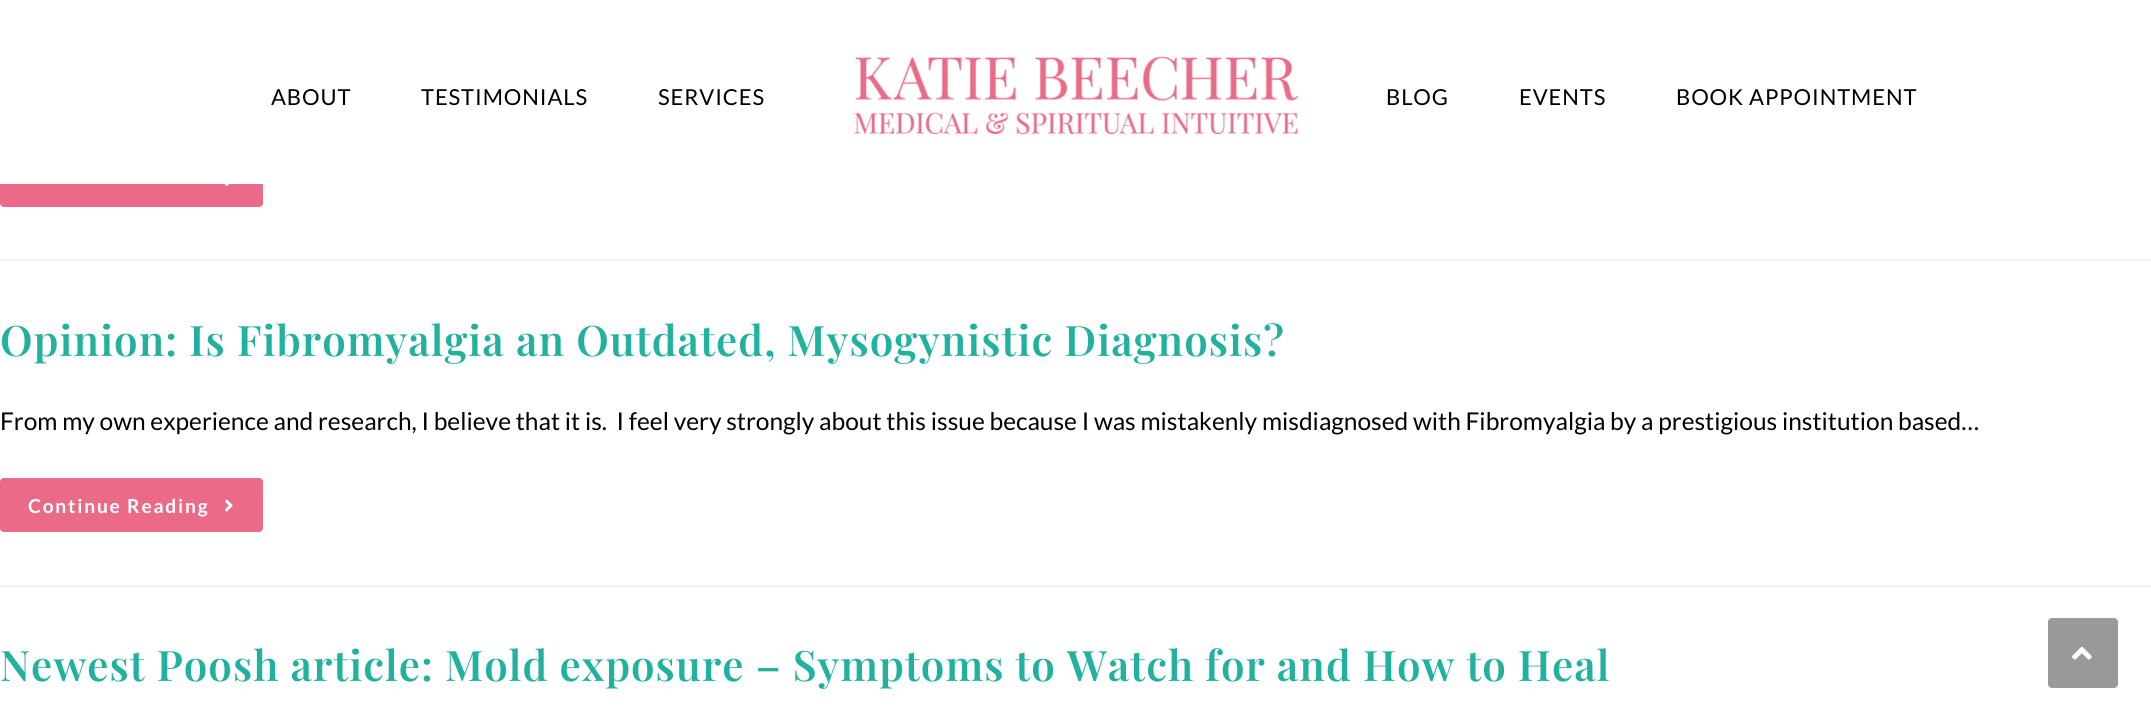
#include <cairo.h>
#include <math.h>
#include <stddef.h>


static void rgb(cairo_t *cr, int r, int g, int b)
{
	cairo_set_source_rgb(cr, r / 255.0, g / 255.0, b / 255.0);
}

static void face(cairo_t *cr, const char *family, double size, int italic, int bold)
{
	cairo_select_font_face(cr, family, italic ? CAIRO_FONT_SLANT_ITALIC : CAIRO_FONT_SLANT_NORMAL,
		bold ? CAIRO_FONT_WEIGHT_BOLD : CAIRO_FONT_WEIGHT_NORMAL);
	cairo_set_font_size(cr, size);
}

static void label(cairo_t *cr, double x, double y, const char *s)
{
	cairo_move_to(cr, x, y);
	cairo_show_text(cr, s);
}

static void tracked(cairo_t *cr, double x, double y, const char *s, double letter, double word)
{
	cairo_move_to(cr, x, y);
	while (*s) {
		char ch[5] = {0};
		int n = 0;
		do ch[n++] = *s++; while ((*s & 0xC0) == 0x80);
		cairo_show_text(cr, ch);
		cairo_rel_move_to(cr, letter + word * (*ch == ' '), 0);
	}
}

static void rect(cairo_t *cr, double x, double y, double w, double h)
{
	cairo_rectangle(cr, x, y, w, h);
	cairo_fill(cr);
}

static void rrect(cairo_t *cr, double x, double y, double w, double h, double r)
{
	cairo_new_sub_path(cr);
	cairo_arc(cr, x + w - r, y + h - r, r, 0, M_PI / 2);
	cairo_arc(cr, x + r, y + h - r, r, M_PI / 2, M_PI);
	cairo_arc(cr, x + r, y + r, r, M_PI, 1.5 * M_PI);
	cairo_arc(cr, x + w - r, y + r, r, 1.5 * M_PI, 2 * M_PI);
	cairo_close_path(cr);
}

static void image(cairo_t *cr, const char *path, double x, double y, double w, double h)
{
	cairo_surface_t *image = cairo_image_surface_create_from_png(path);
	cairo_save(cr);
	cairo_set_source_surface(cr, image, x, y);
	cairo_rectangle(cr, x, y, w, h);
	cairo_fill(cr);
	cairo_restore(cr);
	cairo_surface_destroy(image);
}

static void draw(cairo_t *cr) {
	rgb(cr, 255, 255, 255);
	cairo_paint(cr);
	rgb(cr, 234, 106, 135);
	rrect(cr, 0, 152, 263, 55, 4);
	cairo_fill(cr);
	rgb(cr, 255, 255, 255);
	rect(cr, 0, 152, 263, 32);
	face(cr, "Lato", 22, 0, 0);
	rgb(cr, 0, 0, 0);
	tracked(cr, 271, 105, "ABOUT", 0.9, 0);
	tracked(cr, 421, 105, "TESTIMONIALS", 0.9, 0);
	tracked(cr, 658, 105, "SERVICES", 0.9, 0);
	image(cr, "image0.png", 854, 56, 445, 78);
	tracked(cr, 1386, 105, "BLOG", 0.9, 0);
	tracked(cr, 1519, 105, "EVENTS", 0.9, 0);
	tracked(cr, 1676, 105, "BOOK APPOINTMENT", 0.9, 0);
	rgb(cr, 241, 241, 241);
	rect(cr, 0, 259, 2151, 2);
	image(cr, "image1.png", 225, 184, 4, 2);
	rect(cr, 0, 585, 2151, 2);
	face(cr, "Playfair Display SemiBold", 42, 0, 0);
	rgb(cr, 32, 177, 159);
	tracked(cr, 0, 356, "Opinion: Is Fibromyalgia an Outdated, Mysogynistic Diagnosis?", 1.05, 0);
	face(cr, "Lato", 24.5, 0, 0);
	rgb(cr, 0, 0, 0);
	label(cr, 0, 430, "From my own experience and research, I believe that it is.  I feel very strongly about this issue because I was mistakenly misdiagnosed with Fibromyalgia by a prestigious institution based…");
	rgb(cr, 234, 106, 135);
	rrect(cr, 0, 478, 263, 54, 4);
	cairo_fill(cr);
	face(cr, "Lato", 19.25, 0, 1);
	rgb(cr, 255, 255, 255);
	tracked(cr, 28, 513, "Continue Reading", 1.75, 0);
	image(cr, "image2.png", 225, 499, 8, 13);
	face(cr, "Playfair Display SemiBold", 42, 0, 0);
	rgb(cr, 32, 177, 159);
	tracked(cr, 0, 681, "Newest Poosh article: Mold exposure – Symptoms to Watch for and How to Heal", 1.05, 0);
	rgb(cr, 153, 153, 153);
	rrect(cr, 2048, 618, 70, 70, 4);
	cairo_fill(cr);
	image(cr, "image3.png", 2072, 646, 20, 14);
}

int main(void) {
	cairo_surface_t *surface = cairo_image_surface_create(CAIRO_FORMAT_RGB24, 2151, 722);
	cairo_t *cr = cairo_create(surface);
	cairo_font_options_t *options = cairo_font_options_create();
	cairo_font_options_set_hint_metrics(options, CAIRO_HINT_METRICS_OFF);
	cairo_font_options_set_hint_style(options, CAIRO_HINT_STYLE_NONE);
	cairo_set_font_options(cr, options);
	cairo_set_miter_limit(cr, 4);
	draw(cr);
	cairo_surface_write_to_png(surface, "render.png");
	cairo_font_options_destroy(options);
	cairo_destroy(cr);
	cairo_surface_destroy(surface);
	return 0;
}
